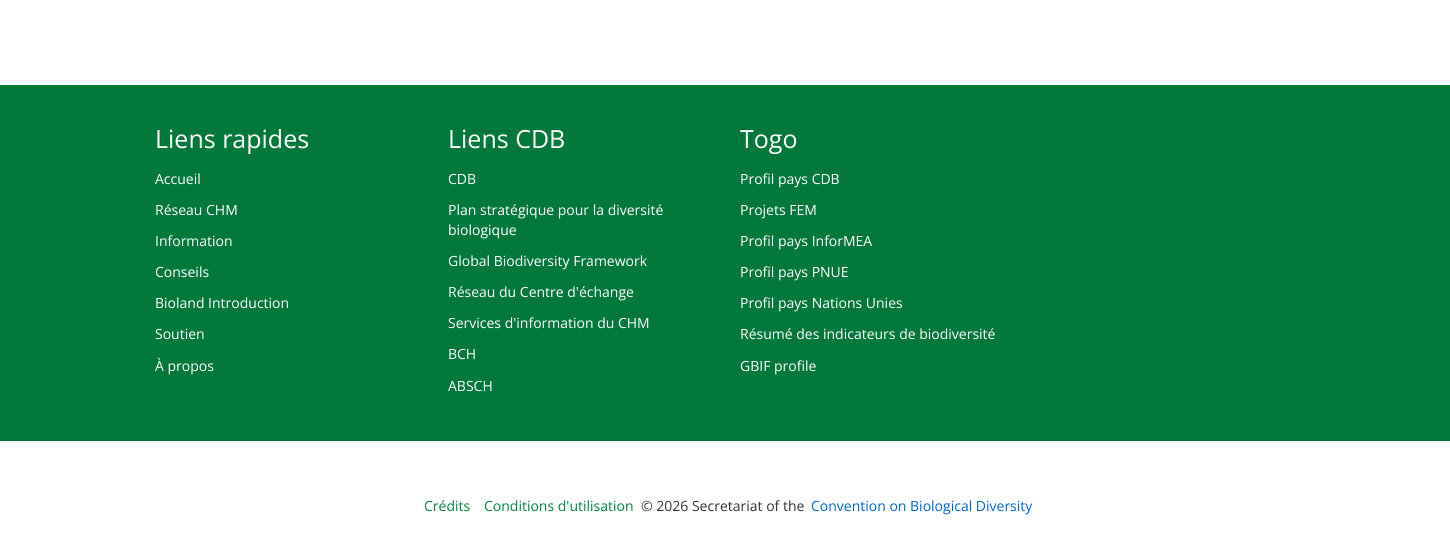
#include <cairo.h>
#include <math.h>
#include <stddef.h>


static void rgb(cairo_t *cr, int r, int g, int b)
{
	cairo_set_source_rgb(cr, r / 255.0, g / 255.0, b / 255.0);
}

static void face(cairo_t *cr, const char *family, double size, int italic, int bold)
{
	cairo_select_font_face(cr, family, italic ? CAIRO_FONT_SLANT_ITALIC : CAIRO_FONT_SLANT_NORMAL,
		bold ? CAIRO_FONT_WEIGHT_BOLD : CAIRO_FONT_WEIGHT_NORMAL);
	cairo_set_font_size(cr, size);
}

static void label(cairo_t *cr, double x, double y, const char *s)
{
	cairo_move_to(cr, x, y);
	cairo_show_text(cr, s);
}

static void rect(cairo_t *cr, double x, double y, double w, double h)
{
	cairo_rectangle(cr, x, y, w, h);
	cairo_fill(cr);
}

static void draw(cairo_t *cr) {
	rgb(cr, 255, 255, 255);
	cairo_paint(cr);
	rgb(cr, 2, 120, 58);
	rect(cr, 0, 85, 1450, 356);
	face(cr, "Open Sans", 25, 0, 0);
	rgb(cr, 255, 255, 255);
	label(cr, 155, 148, "Liens rapides");
	face(cr, "Open Sans", 14, 0, 0);
	label(cr, 155, 184, "Accueil");
	label(cr, 155, 215, "Réseau CHM");
	label(cr, 155, 246, "Information");
	label(cr, 155, 277, "Conseils");
	label(cr, 155, 308, "Bioland Introduction");
	label(cr, 155, 339, "Soutien");
	label(cr, 155, 371, "À propos");
	face(cr, "Open Sans", 25, 0, 0);
	label(cr, 448, 148, "Liens CDB");
	face(cr, "Open Sans", 14, 0, 0);
	label(cr, 448, 184, "CDB");
	label(cr, 448, 215, "Plan stratégique pour la diversité");
	label(cr, 448, 235, "biologique");
	label(cr, 448, 266, "Global Biodiversity Framework");
	label(cr, 448, 297, "Réseau du Centre d'échange");
	label(cr, 448, 328, "Services d'information du CHM");
	label(cr, 448, 359, "BCH");
	label(cr, 448, 391, "ABSCH");
	face(cr, "Open Sans", 25, 0, 0);
	label(cr, 740, 148, "Togo");
	face(cr, "Open Sans", 14, 0, 0);
	label(cr, 740, 184, "Profil pays CDB");
	label(cr, 740, 215, "Projets FEM");
	label(cr, 740, 246, "Profil pays InforMEA");
	label(cr, 740, 277, "Profil pays PNUE");
	label(cr, 740, 308, "Profil pays Nations Unies");
	label(cr, 740, 339, "Résumé des indicateurs de biodiversité");
	label(cr, 740, 371, "GBIF profile");
	rgb(cr, 2, 130, 63);
	label(cr, 424, 511, "Crédits");
	label(cr, 484, 511, "Conditions d'utilisation");
	rgb(cr, 51, 51, 51);
	label(cr, 641, 511, "© 2026 Secretariat of the");
	rgb(cr, 0, 102, 204);
	label(cr, 811, 511, "Convention on Biological Diversity");
}

int main(void) {
	cairo_surface_t *surface = cairo_image_surface_create(CAIRO_FORMAT_RGB24, 1450, 558);
	cairo_t *cr = cairo_create(surface);
	cairo_font_options_t *options = cairo_font_options_create();
	cairo_font_options_set_hint_metrics(options, CAIRO_HINT_METRICS_OFF);
	cairo_font_options_set_hint_style(options, CAIRO_HINT_STYLE_NONE);
	cairo_set_font_options(cr, options);
	cairo_set_miter_limit(cr, 4);
	draw(cr);
	cairo_surface_write_to_png(surface, "render.png");
	cairo_font_options_destroy(options);
	cairo_destroy(cr);
	cairo_surface_destroy(surface);
	return 0;
}
